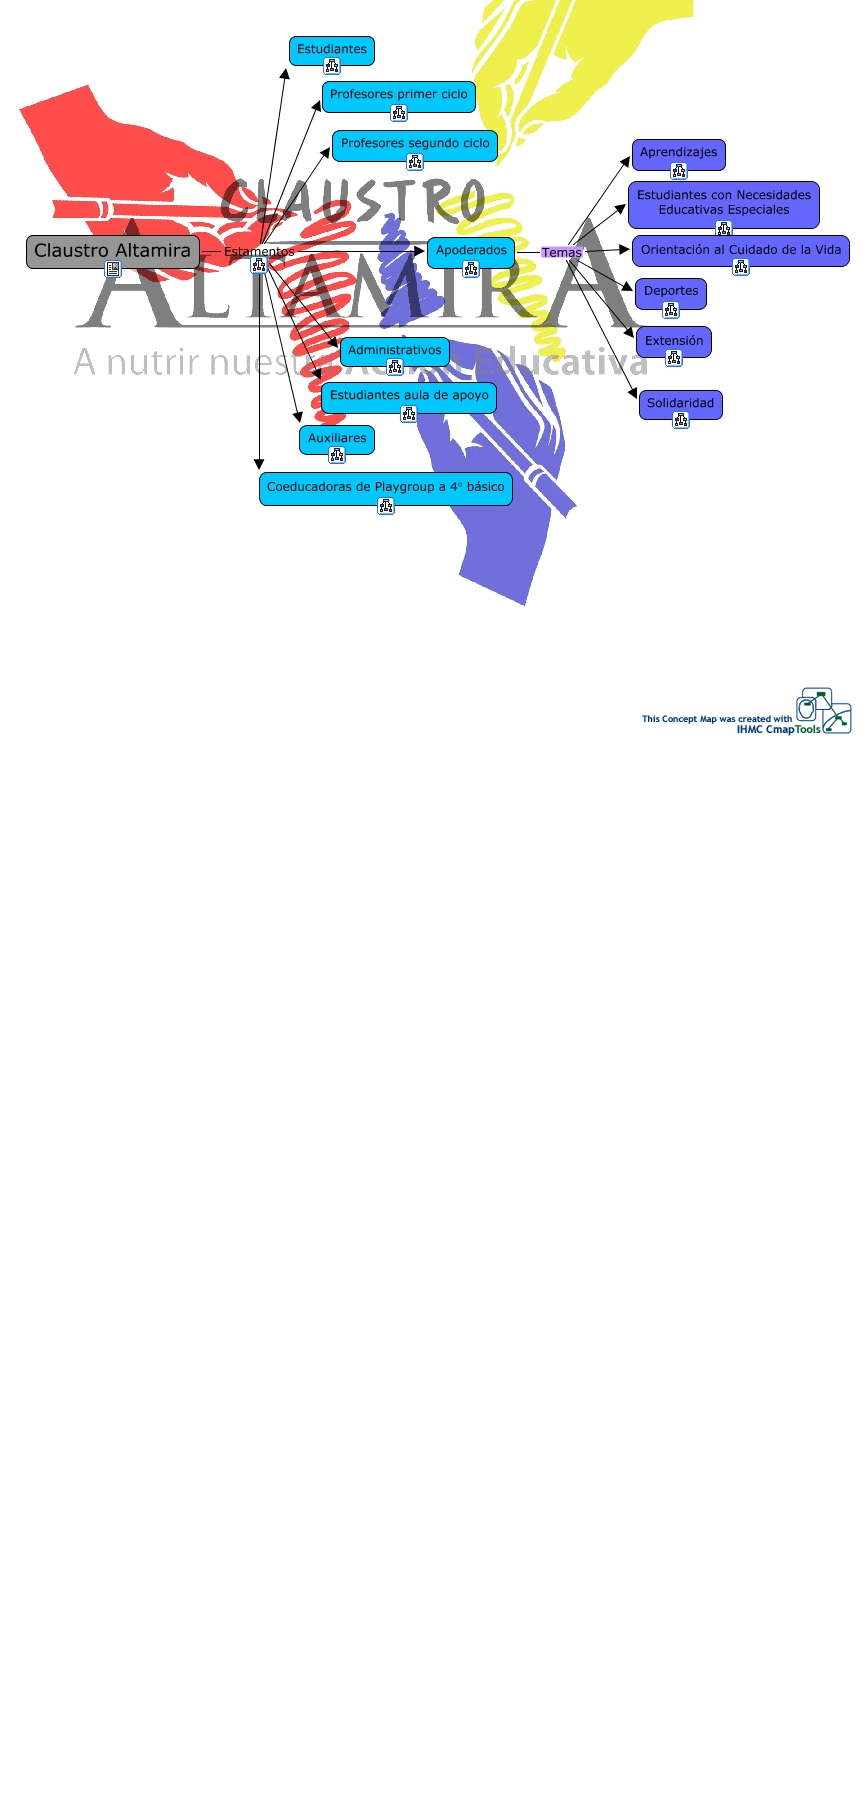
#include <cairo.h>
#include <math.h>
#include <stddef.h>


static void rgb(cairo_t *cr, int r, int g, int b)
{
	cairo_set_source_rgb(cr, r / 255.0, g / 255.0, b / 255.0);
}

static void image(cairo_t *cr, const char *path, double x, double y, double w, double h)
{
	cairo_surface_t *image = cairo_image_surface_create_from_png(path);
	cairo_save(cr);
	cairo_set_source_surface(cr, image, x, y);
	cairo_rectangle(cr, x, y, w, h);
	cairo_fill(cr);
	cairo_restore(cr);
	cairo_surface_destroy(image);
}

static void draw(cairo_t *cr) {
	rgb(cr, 255, 255, 255);
	cairo_paint(cr);
	image(cr, "image0.png", 18, 0, 832, 607);
	image(cr, "image1.png", 642, 687, 210, 49);
}

int main(void) {
	cairo_surface_t *surface = cairo_image_surface_create(CAIRO_FORMAT_RGB24, 867, 1799);
	cairo_t *cr = cairo_create(surface);
	cairo_font_options_t *options = cairo_font_options_create();
	cairo_font_options_set_hint_metrics(options, CAIRO_HINT_METRICS_OFF);
	cairo_font_options_set_hint_style(options, CAIRO_HINT_STYLE_NONE);
	cairo_set_font_options(cr, options);
	cairo_set_miter_limit(cr, 4);
	draw(cr);
	cairo_surface_write_to_png(surface, "render.png");
	cairo_font_options_destroy(options);
	cairo_destroy(cr);
	cairo_surface_destroy(surface);
	return 0;
}
